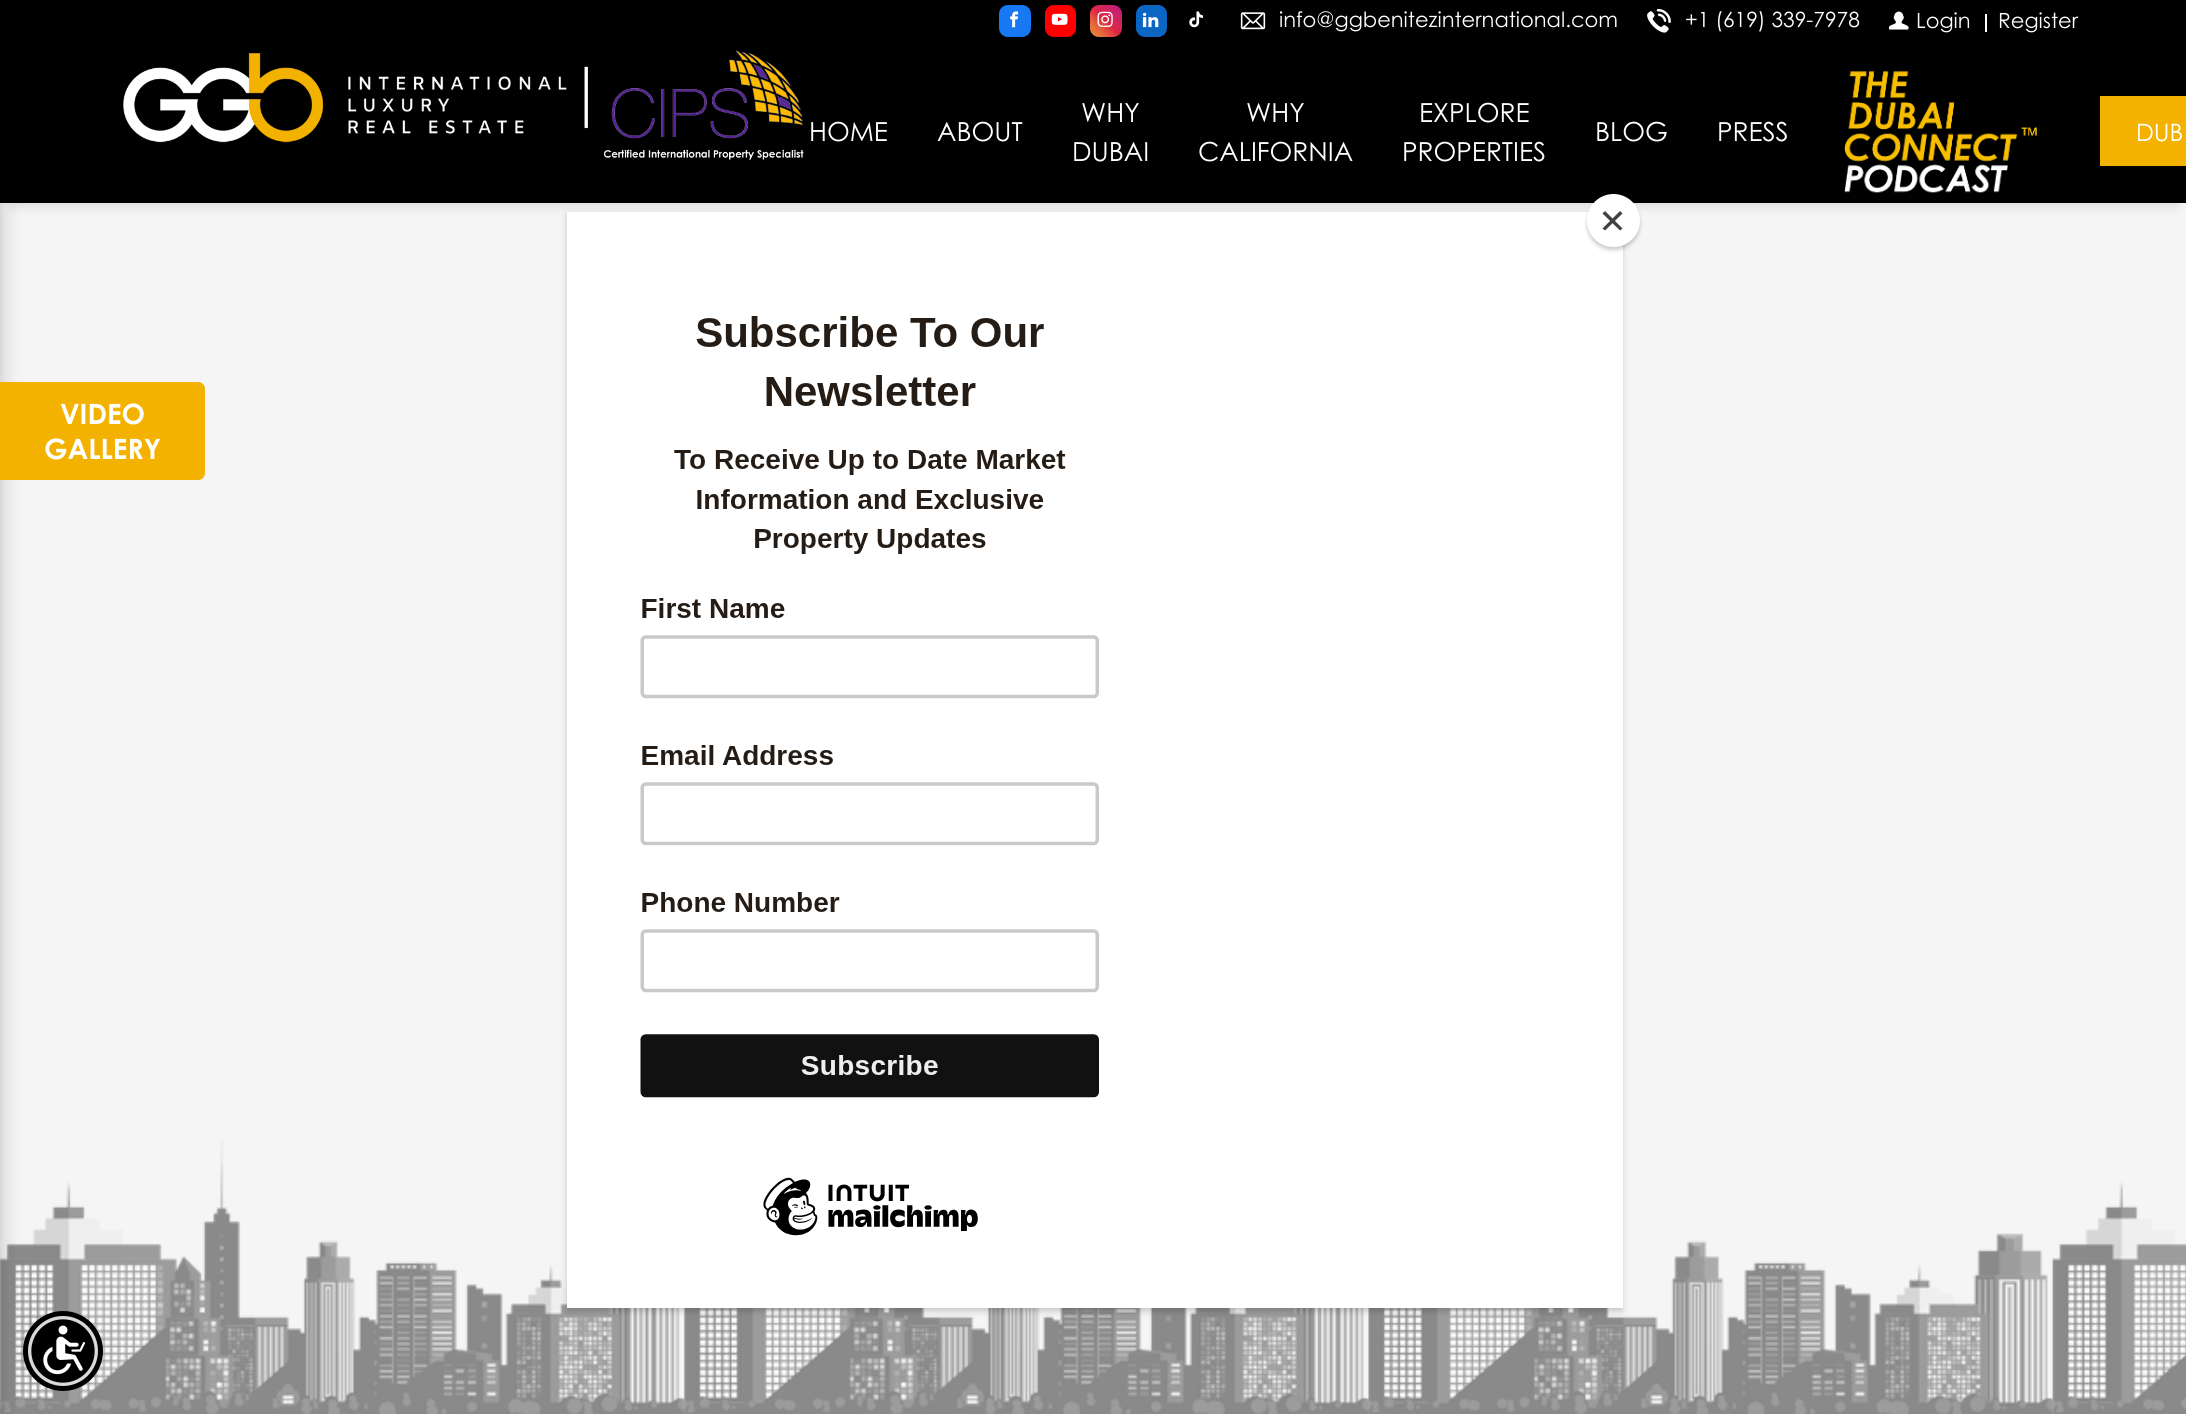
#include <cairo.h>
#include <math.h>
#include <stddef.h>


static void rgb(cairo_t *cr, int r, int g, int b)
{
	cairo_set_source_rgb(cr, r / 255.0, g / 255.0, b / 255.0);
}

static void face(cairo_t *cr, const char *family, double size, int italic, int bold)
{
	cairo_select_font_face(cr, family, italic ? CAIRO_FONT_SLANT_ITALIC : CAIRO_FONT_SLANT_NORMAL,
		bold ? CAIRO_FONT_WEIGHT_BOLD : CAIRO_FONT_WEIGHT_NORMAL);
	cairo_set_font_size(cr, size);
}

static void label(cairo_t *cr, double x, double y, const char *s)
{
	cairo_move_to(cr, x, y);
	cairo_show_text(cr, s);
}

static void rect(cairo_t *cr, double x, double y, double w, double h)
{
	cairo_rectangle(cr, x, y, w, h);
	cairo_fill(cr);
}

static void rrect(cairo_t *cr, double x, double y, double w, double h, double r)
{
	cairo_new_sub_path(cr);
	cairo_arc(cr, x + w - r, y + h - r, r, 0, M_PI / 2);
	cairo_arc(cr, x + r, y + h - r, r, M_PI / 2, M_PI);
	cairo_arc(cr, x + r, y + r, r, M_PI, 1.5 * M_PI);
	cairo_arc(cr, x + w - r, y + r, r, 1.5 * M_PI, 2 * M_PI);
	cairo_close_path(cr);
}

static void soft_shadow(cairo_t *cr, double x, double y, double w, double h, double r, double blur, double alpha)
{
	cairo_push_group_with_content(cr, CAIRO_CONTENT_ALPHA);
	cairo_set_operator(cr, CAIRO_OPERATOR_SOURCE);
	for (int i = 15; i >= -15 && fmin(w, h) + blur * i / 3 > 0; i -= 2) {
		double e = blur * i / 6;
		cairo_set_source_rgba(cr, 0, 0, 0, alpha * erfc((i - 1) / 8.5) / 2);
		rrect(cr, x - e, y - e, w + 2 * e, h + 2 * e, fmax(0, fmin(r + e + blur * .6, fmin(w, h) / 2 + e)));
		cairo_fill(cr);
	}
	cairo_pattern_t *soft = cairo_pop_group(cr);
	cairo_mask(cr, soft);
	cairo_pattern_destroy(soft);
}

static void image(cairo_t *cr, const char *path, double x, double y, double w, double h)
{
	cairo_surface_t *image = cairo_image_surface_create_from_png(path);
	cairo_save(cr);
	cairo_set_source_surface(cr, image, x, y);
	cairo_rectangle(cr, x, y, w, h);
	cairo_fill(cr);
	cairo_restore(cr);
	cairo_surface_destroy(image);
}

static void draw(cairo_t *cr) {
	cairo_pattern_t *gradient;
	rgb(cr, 245, 245, 245);
	cairo_paint(cr);
	rgb(cr, 0, 0, 0);
	soft_shadow(cr, 11, 25, 2166, 182, 0, 5, 0.1);
	rgb(cr, 0, 0, 0);
	rect(cr, 0, 0, 2186, 203);
	rgb(cr, 24, 119, 242);
	rrect(cr, 999, 5, 32, 32, 9);
	cairo_fill(cr);
	image(cr, "image0.png", 1010, 11, 9, 17);
	rgb(cr, 255, 0, 0);
	rrect(cr, 1045, 5, 31, 32, 9);
	cairo_fill(cr);
	image(cr, "image1.png", 1051, 13, 17, 12);
	gradient = cairo_pattern_create_linear(1090, 37, 1122, 5.2);
	cairo_pattern_add_color_stop_rgba(gradient, 0, 0.941, 0.58, 0.2, 1);
	cairo_pattern_add_color_stop_rgba(gradient, 0.25, 0.902, 0.408, 0.235, 1);
	cairo_pattern_add_color_stop_rgba(gradient, 0.5, 0.863, 0.153, 0.263, 1);
	cairo_pattern_add_color_stop_rgba(gradient, 0.75, 0.8, 0.137, 0.4, 1);
	cairo_pattern_add_color_stop_rgba(gradient, 1, 0.737, 0.094, 0.533, 1);
	cairo_set_source(cr, gradient);
	cairo_pattern_destroy(gradient);
	rrect(cr, 1090, 5, 32, 32, 9);
	cairo_fill(cr);
	image(cr, "image2.png", 1097, 11, 16, 16);
	rgb(cr, 10, 102, 194);
	rrect(cr, 1136, 5, 31, 32, 9);
	cairo_fill(cr);
	image(cr, "image3.png", 1142, 12, 17, 16);
	image(cr, "image4.png", 1189, 11, 14, 17);
	image(cr, "image5.png", 1240, 12, 26, 18);
	face(cr, "Century Gothic", 21, 0, 0);
	rgb(cr, 255, 255, 255);
	label(cr, 1279, 27, "info@ggbenitezinternational.com");
	image(cr, "image6.png", 1647, 9, 24, 24);
	label(cr, 1685, 27, "+1 (619) 339-7978");
	image(cr, "image7.png", 1888, 11, 21, 19);
	label(cr, 1916, 28, "Login");
	rect(cr, 1985, 14, 2, 18);
	label(cr, 1998, 28, "Register");
	image(cr, "image8.png", 123, 50, 681, 110);
	face(cr, "Century Gothic", 26.25, 0, 0);
	label(cr, 809, 141, "HOME");
	label(cr, 937, 141, "ABOUT");
	label(cr, 1081, 122, "WHY");
	label(cr, 1072, 161, "DUBAI");
	label(cr, 1246, 122, "WHY");
	label(cr, 1198, 161, "CALIFORNIA");
	label(cr, 1419, 122, "EXPLORE");
	label(cr, 1402, 161, "PROPERTIES");
	label(cr, 1595, 141, "BLOG");
	label(cr, 1717, 141, "PRESS");
	image(cr, "image9.png", 1844, 71, 193, 122);
	rgb(cr, 244, 178, 0);
	rect(cr, 2100, 96, 86, 70);
	face(cr, "Century Gothic", 24, 0, 0);
	rgb(cr, 255, 255, 255);
	label(cr, 2136, 141, "DUB");
	image(cr, "image11.png", 0, 1140, 2186, 274);
	rgb(cr, 0, 0, 0);
	cairo_arc(cr, 63, 1351, 40, 0, 2 * M_PI);
	cairo_fill(cr);
	image(cr, "image12.png", 28, 1316, 70, 70);
	rgb(cr, 0, 0, 0);
	soft_shadow(cr, -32, 0, 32, 1414, 0, 10.5, 0.23);
	rgb(cr, 244, 178, 0);
	cairo_new_path(cr);
	cairo_move_to(cr, 0, 382);
	cairo_line_to(cr, 198, 382);
	cairo_curve_to(cr, 202, 382, 205, 385, 205, 389);
	cairo_line_to(cr, 205, 473);
	cairo_curve_to(cr, 205, 477, 202, 480, 198, 480);
	cairo_line_to(cr, 0, 480);
	cairo_close_path(cr);
	cairo_fill(cr);
	face(cr, "Century Gothic", 28, 0, 1);
	rgb(cr, 255, 255, 255);
	label(cr, 60, 424, "VIDEO");
	label(cr, 44, 459, "GALLERY");
	rgb(cr, 0, 0, 0);
	soft_shadow(cr, 567, 215, 1055, 1096, 0, 3.5, 0.2);
	image(cr, "image10.png", 567, 212, 1056, 1096);
	soft_shadow(cr, 1587, 198, 53, 52, 26, 2, 0.2);
	rgb(cr, 255, 255, 255);
	cairo_arc(cr, 1613.5, 220.5, 26.5, 0, 2 * M_PI);
	cairo_fill(cr);
	rgb(cr, 65, 65, 65);
	cairo_new_path(cr);
	cairo_move_to(cr, 1620, 211);
	cairo_line_to(cr, 1622.5, 213.5);
	cairo_line_to(cr, 1605, 230.5);
	cairo_line_to(cr, 1602.5, 228.5);
	cairo_close_path(cr);
	cairo_fill(cr);
	cairo_new_path(cr);
	cairo_move_to(cr, 1602.5, 213.5);
	cairo_line_to(cr, 1605, 211);
	cairo_line_to(cr, 1622.5, 228.5);
	cairo_line_to(cr, 1620, 230.5);
	cairo_close_path(cr);
	cairo_fill(cr);
}

int main(void) {
	cairo_surface_t *surface = cairo_image_surface_create(CAIRO_FORMAT_RGB24, 2186, 1414);
	cairo_t *cr = cairo_create(surface);
	cairo_font_options_t *options = cairo_font_options_create();
	cairo_font_options_set_hint_metrics(options, CAIRO_HINT_METRICS_OFF);
	cairo_font_options_set_hint_style(options, CAIRO_HINT_STYLE_NONE);
	cairo_set_font_options(cr, options);
	cairo_set_miter_limit(cr, 4);
	draw(cr);
	cairo_surface_write_to_png(surface, "render.png");
	cairo_font_options_destroy(options);
	cairo_destroy(cr);
	cairo_surface_destroy(surface);
	return 0;
}
